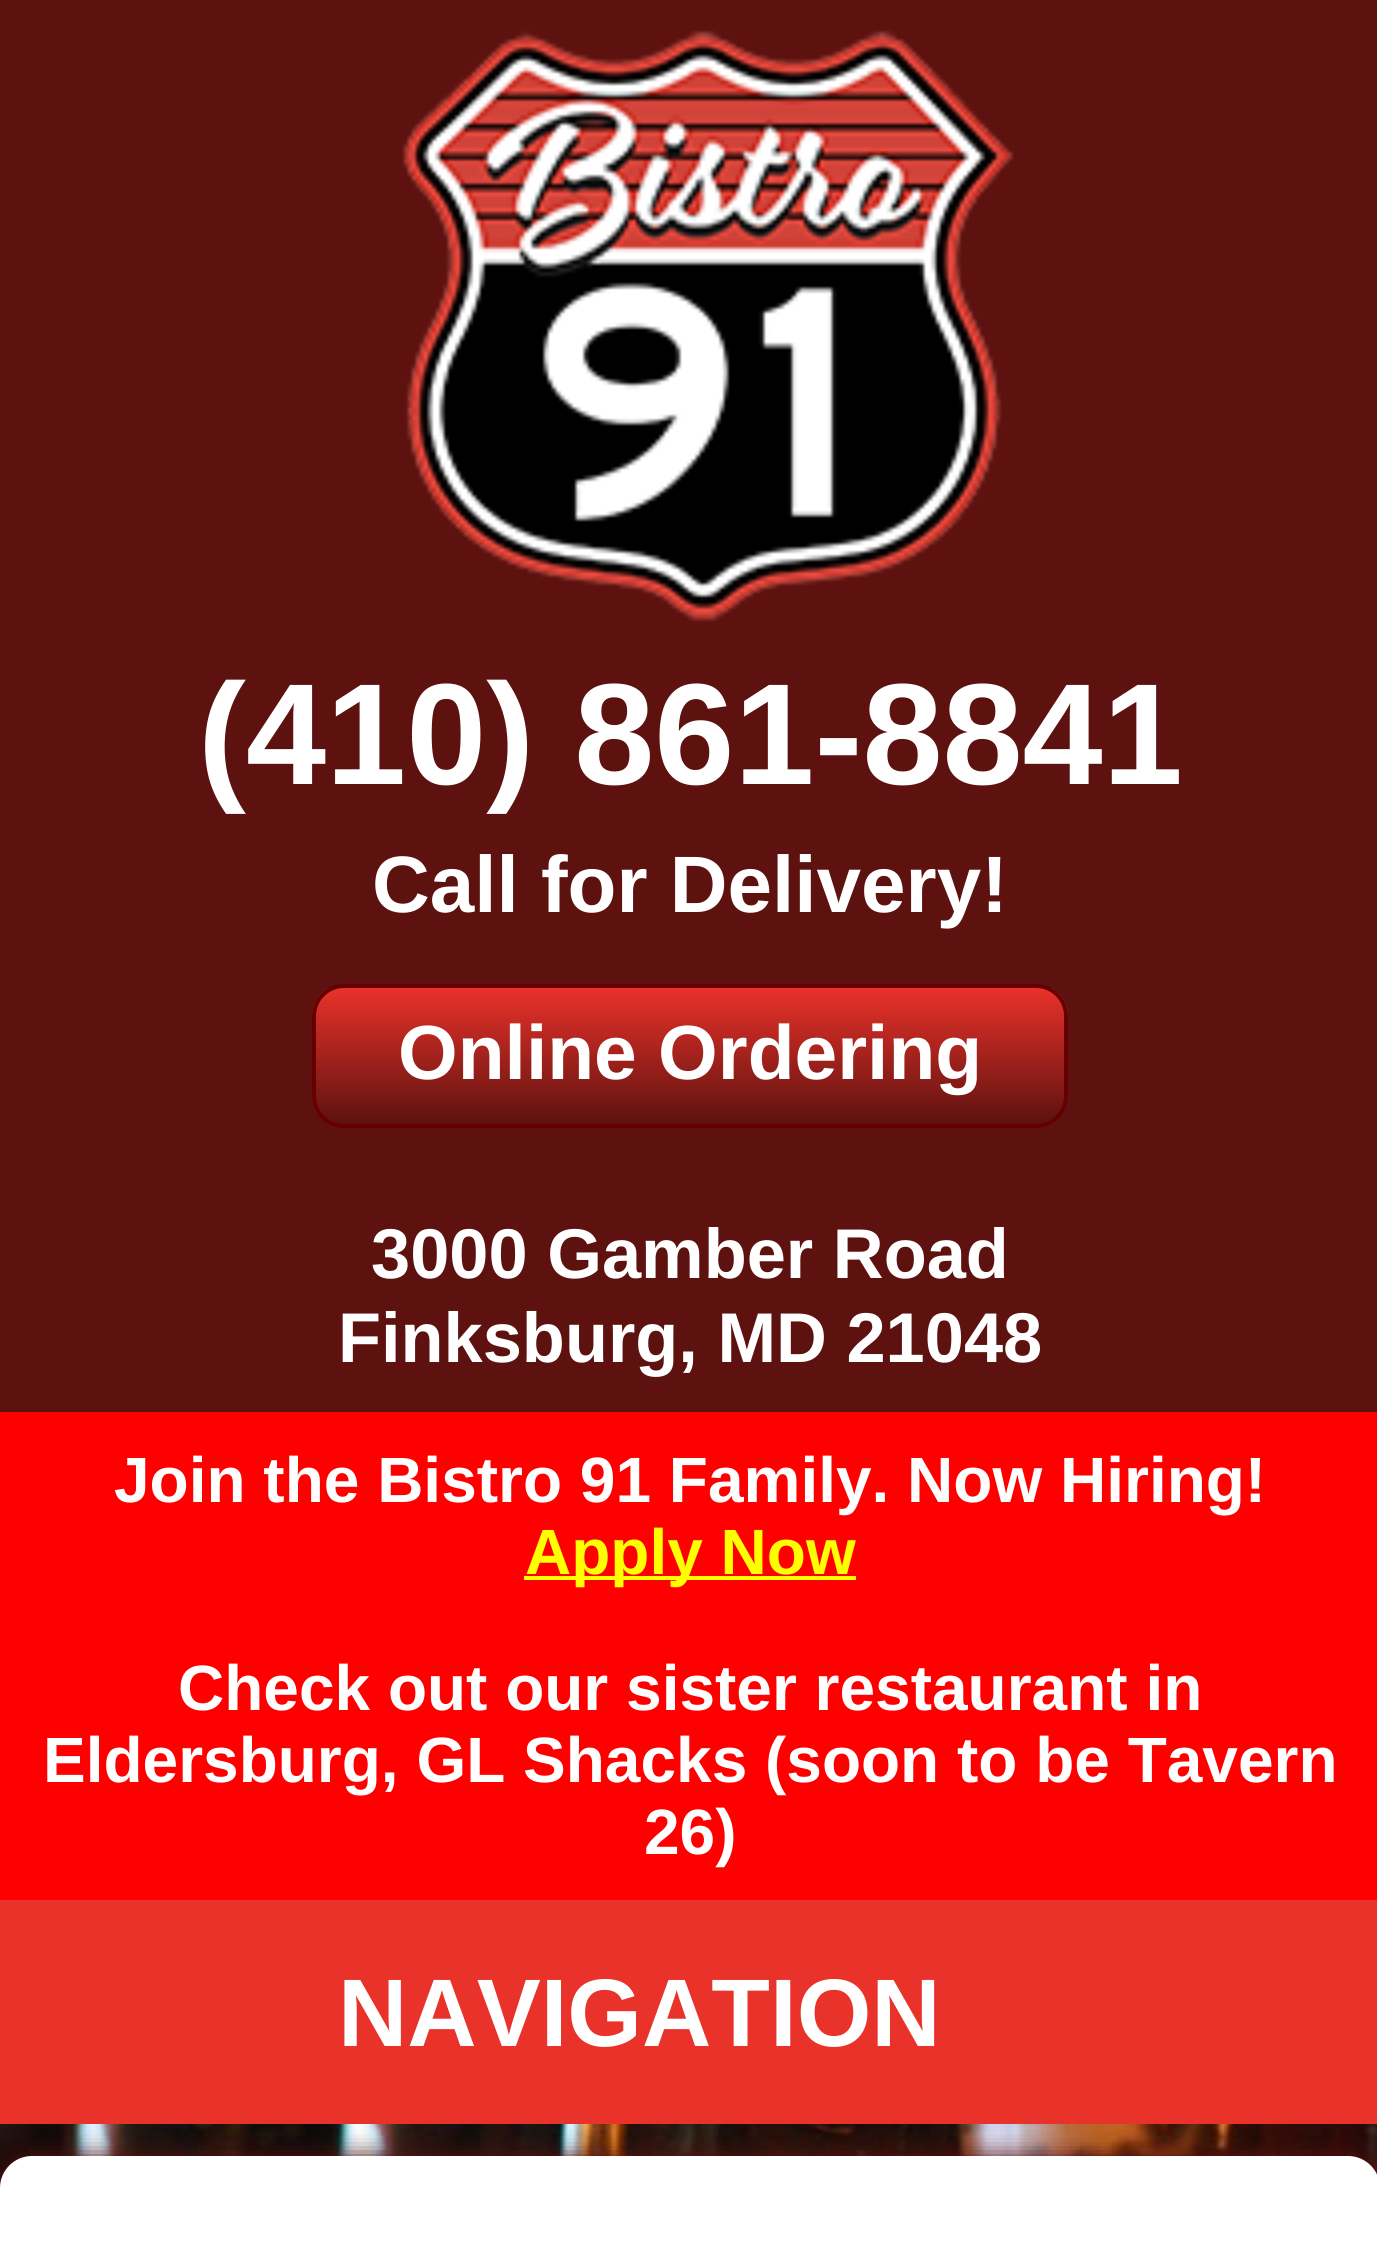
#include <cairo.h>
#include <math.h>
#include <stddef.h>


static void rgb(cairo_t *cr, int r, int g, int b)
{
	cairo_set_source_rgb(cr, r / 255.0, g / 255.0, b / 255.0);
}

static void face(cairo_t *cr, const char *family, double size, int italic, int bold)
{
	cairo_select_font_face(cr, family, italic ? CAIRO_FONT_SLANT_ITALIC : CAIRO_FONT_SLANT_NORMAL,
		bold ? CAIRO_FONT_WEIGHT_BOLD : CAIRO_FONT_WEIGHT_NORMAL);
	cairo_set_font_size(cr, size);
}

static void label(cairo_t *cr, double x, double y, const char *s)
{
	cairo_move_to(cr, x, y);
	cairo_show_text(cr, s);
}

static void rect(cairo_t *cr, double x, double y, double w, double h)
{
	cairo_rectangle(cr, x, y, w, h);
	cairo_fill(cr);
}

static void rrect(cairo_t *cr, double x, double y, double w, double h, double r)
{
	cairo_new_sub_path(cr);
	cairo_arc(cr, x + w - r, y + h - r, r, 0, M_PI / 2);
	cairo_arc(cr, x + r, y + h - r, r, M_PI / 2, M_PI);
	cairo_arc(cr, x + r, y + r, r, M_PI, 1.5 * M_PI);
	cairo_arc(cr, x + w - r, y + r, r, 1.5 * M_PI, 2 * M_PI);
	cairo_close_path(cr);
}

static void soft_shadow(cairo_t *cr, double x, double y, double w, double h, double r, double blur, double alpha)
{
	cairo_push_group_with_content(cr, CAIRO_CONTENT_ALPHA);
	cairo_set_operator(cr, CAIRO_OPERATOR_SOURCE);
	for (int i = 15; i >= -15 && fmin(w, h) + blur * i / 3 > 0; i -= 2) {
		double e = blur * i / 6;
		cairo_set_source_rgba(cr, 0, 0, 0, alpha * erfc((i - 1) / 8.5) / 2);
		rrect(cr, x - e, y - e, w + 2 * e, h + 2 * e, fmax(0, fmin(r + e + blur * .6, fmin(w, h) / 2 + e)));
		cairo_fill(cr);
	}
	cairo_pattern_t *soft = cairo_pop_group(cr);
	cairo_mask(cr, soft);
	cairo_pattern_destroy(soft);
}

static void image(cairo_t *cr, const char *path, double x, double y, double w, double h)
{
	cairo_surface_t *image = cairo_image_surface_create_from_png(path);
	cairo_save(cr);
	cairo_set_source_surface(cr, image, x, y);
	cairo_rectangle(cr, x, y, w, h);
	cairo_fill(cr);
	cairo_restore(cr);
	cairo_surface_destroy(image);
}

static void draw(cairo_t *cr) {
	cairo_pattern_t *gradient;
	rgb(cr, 255, 255, 255);
	cairo_paint(cr);
	image(cr, "image0.png", 0, 2124, 1377, 64);
	rgb(cr, 93, 18, 15);
	rect(cr, 0, 0, 1377, 1412);
	image(cr, "image1.png", 402, 30, 612, 592);
	face(cr, "Liberation Sans", 144, 0, 1);
	rgb(cr, 255, 255, 255);
	label(cr, 198, 784, "(410) 861-8841");
	face(cr, "Liberation Sans", 80, 0, 1);
	label(cr, 372, 912, "Call for Delivery!");
	cairo_save(cr);
	rrect(cr, 312, 984, 756, 144, 32);
	cairo_clip(cr);
	gradient = cairo_pattern_create_linear(690, 988, 690, 1124);
	cairo_pattern_add_color_stop_rgba(gradient, 0, 0.914, 0.196, 0.165, 1);
	cairo_pattern_add_color_stop_rgba(gradient, 1, 0.365, 0.071, 0.059, 1);
	cairo_set_source(cr, gradient);
	cairo_pattern_destroy(gradient);
	rect(cr, 312, 988, 756, 136);
	cairo_restore(cr);
	rrect(cr, 314, 986, 752, 140, 30);
	rgb(cr, 102, 0, 0);
	cairo_set_line_width(cr, 4);
	cairo_stroke(cr);
	face(cr, "Liberation Sans", 76.75, 0, 1);
	rgb(cr, 255, 255, 255);
	label(cr, 398, 1079, "Online Ordering");
	face(cr, "Liberation Sans", 70.4, 0, 1);
	label(cr, 371, 1278, "3000 Gamber Road");
	label(cr, 338, 1362, "Finksburg, MD 21048");
	rgb(cr, 255, 0, 0);
	rect(cr, 0, 1412, 1377, 488);
	face(cr, "Liberation Sans", 64, 0, 1);
	rgb(cr, 255, 255, 255);
	label(cr, 114, 1502, "Join the Bistro 91 Family. Now Hiring!");
	rgb(cr, 255, 255, 0);
	rect(cr, 524, 1576, 332, 4);
	label(cr, 525, 1574, "Apply Now");
	rgb(cr, 255, 255, 255);
	label(cr, 178, 1710, "Check out our sister restaurant in");
	label(cr, 43, 1782, "Eldersburg, GL Shacks (soon to be Tavern");
	label(cr, 644, 1854, "26)");
	rgb(cr, 233, 50, 42);
	rect(cr, 0, 1900, 1377, 224);
	face(cr, "Liberation Sans", 96, 0, 1);
	rgb(cr, 255, 255, 255);
	label(cr, 338, 2046, "NAVIGATION");
	rgb(cr, 93, 18, 15);
	soft_shadow(cr, -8, 2156, 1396, 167, 40, 12, 1);
	rgb(cr, 255, 255, 255);
	rrect(cr, 0, 2156, 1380, 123, 32);
	cairo_fill(cr);
}

int main(void) {
	cairo_surface_t *surface = cairo_image_surface_create(CAIRO_FORMAT_RGB24, 1377, 2247);
	cairo_t *cr = cairo_create(surface);
	cairo_font_options_t *options = cairo_font_options_create();
	cairo_font_options_set_hint_metrics(options, CAIRO_HINT_METRICS_OFF);
	cairo_font_options_set_hint_style(options, CAIRO_HINT_STYLE_NONE);
	cairo_set_font_options(cr, options);
	cairo_set_miter_limit(cr, 4);
	draw(cr);
	cairo_surface_write_to_png(surface, "render.png");
	cairo_font_options_destroy(options);
	cairo_destroy(cr);
	cairo_surface_destroy(surface);
	return 0;
}
